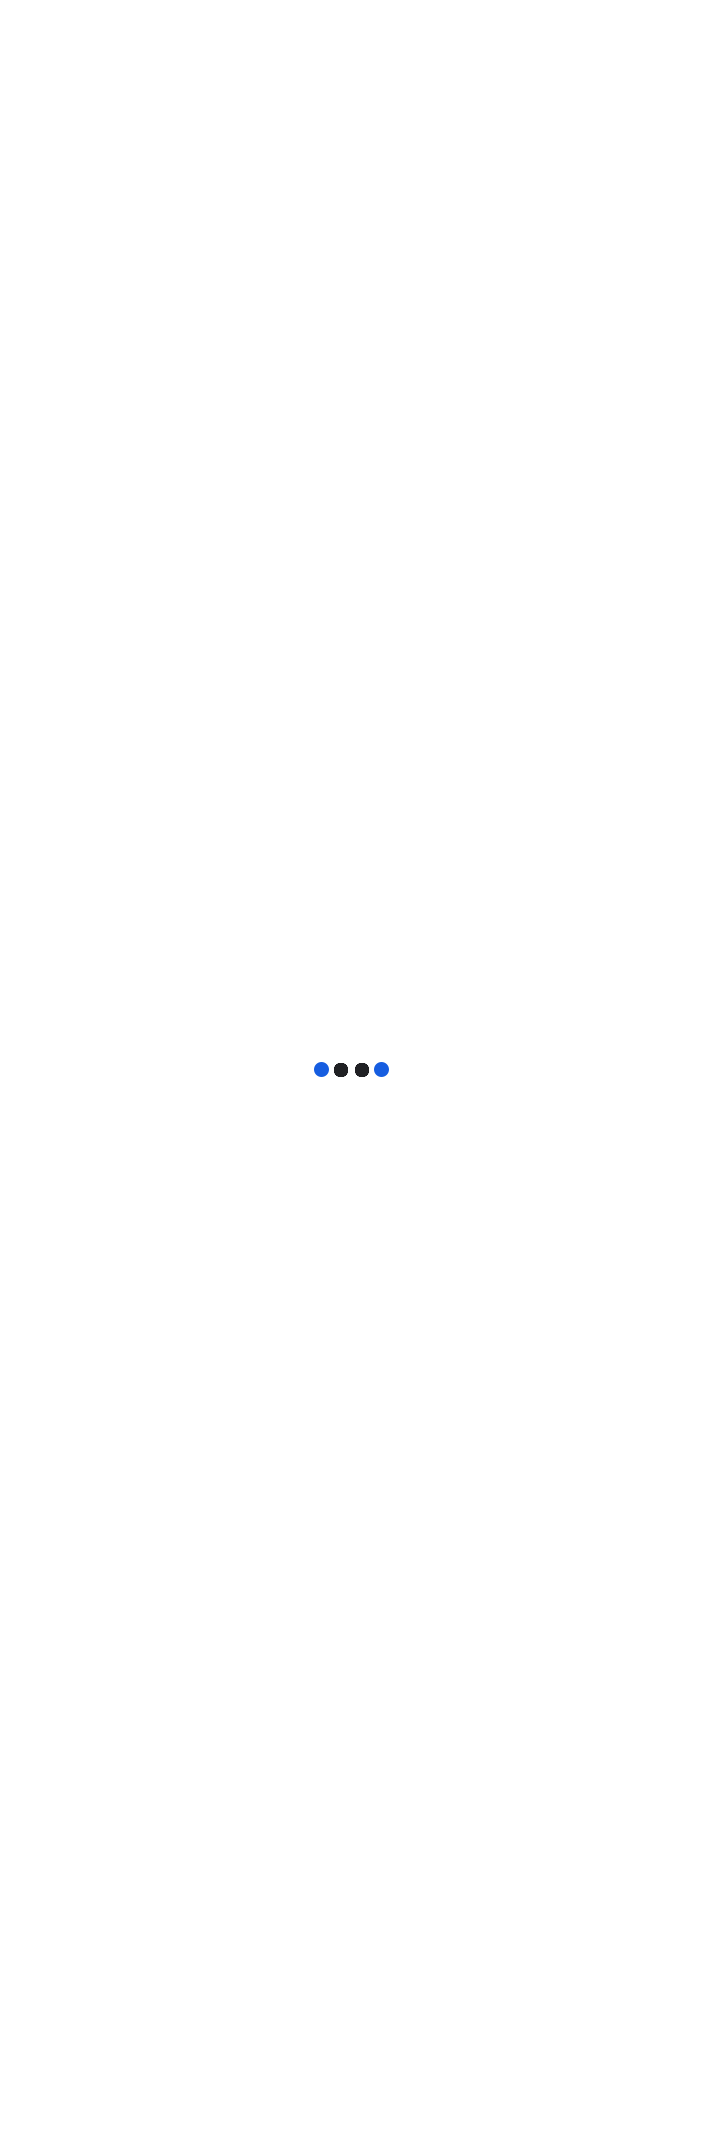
#include <cairo.h>
#include <math.h>
#include <stddef.h>


static void rgb(cairo_t *cr, int r, int g, int b)
{
	cairo_set_source_rgb(cr, r / 255.0, g / 255.0, b / 255.0);
}

static void rect(cairo_t *cr, double x, double y, double w, double h)
{
	cairo_rectangle(cr, x, y, w, h);
	cairo_fill(cr);
}

static void draw(cairo_t *cr) {
	cairo_pattern_t *gradient;
	rgb(cr, 255, 255, 255);
	cairo_paint(cr);
	gradient = cairo_pattern_create_radial(362, 1070, 0, 362, 1070, 7.5);
	cairo_pattern_add_color_stop_rgba(gradient, 0.95, 0.125, 0.129, 0.141, 1);
	cairo_pattern_add_color_stop_rgba(gradient, 1, 1, 1, 1, 1);
	cairo_set_source(cr, gradient);
	cairo_pattern_destroy(gradient);
	rect(cr, 355, 1063, 14, 14);
	gradient = cairo_pattern_create_radial(341, 1070, 0, 341, 1070, 7.5);
	cairo_pattern_add_color_stop_rgba(gradient, 0.95, 0.125, 0.129, 0.141, 1);
	cairo_pattern_add_color_stop_rgba(gradient, 1, 1, 1, 1, 1);
	cairo_set_source(cr, gradient);
	cairo_pattern_destroy(gradient);
	rect(cr, 334, 1063, 14, 14);
	rgb(cr, 22, 93, 224);
	cairo_arc(cr, 321.5, 1069.5, 7.5, 0, 2 * M_PI);
	cairo_fill(cr);
	cairo_arc(cr, 381.5, 1069.5, 7.5, 0, 2 * M_PI);
	cairo_fill(cr);
}

int main(void) {
	cairo_surface_t *surface = cairo_image_surface_create(CAIRO_FORMAT_RGB24, 703, 2138);
	cairo_t *cr = cairo_create(surface);
	cairo_font_options_t *options = cairo_font_options_create();
	cairo_font_options_set_hint_metrics(options, CAIRO_HINT_METRICS_OFF);
	cairo_font_options_set_hint_style(options, CAIRO_HINT_STYLE_NONE);
	cairo_set_font_options(cr, options);
	cairo_set_miter_limit(cr, 4);
	draw(cr);
	cairo_surface_write_to_png(surface, "render.png");
	cairo_font_options_destroy(options);
	cairo_destroy(cr);
	cairo_surface_destroy(surface);
	return 0;
}
